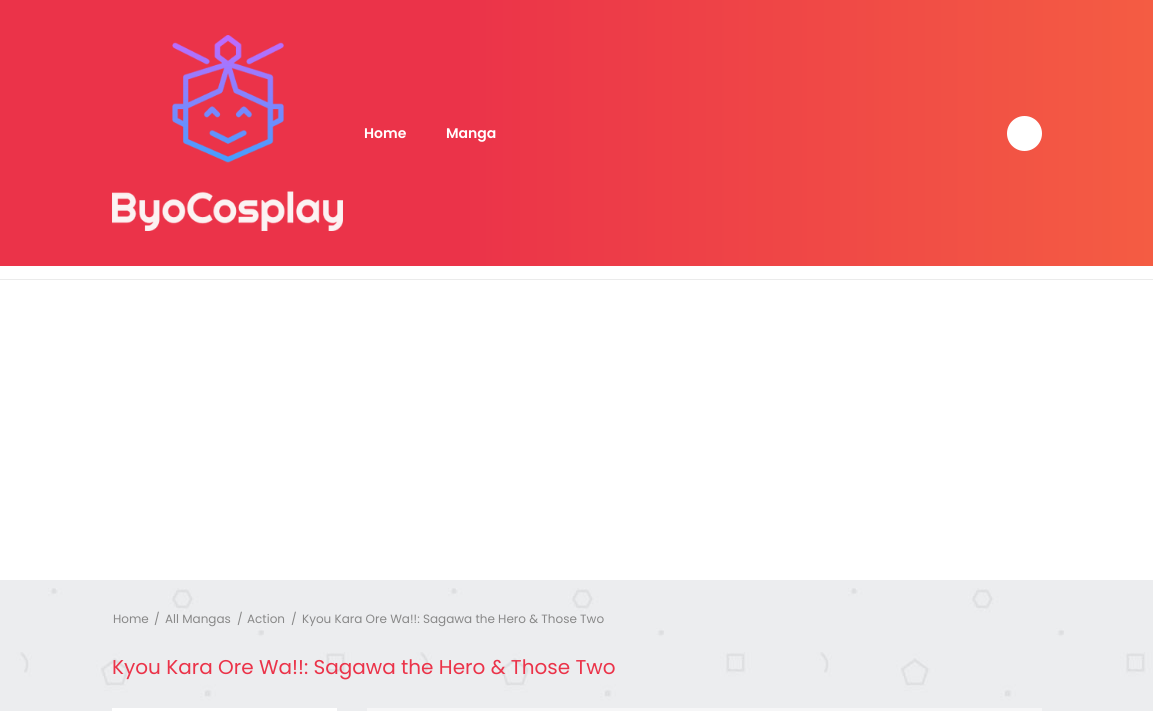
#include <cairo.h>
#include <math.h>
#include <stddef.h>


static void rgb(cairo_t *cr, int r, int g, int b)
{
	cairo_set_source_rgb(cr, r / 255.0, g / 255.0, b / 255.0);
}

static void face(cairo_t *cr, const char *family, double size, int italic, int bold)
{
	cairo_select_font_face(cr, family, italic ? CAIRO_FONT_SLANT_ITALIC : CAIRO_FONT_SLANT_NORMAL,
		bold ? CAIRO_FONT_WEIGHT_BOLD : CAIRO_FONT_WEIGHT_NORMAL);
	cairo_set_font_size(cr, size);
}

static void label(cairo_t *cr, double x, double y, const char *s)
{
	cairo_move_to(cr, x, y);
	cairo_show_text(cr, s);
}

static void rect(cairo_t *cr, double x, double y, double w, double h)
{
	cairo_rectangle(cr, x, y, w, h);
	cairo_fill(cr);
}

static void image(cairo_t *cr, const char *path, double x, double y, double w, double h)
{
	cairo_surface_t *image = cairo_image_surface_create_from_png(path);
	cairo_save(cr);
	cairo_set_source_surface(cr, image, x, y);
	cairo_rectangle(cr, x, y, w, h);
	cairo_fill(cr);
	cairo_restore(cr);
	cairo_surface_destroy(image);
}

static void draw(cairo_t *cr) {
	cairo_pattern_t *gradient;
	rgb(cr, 255, 255, 255);
	cairo_paint(cr);
	gradient = cairo_pattern_create_linear(0, 133, 1153, 133);
	cairo_pattern_add_color_stop_rgba(gradient, 0.4, 0.922, 0.2, 0.286, 1);
	cairo_pattern_add_color_stop_rgba(gradient, 1, 0.957, 0.361, 0.263, 1);
	cairo_set_source(cr, gradient);
	cairo_pattern_destroy(gradient);
	rect(cr, 0, 0, 1153, 266);
	image(cr, "image0.png", 112, 35, 231, 196);
	face(cr, "Poppins SemiBold", 14, 0, 0);
	rgb(cr, 255, 255, 255);
	label(cr, 364, 138, "Home");
	label(cr, 446, 138, "Manga");
	cairo_new_path(cr);
	cairo_arc(cr, 1024.5, 133.5, 17.5, 0, 2 * M_PI);
	cairo_fill(cr);
	rgb(cr, 235, 235, 235);
	rect(cr, 0, 279, 1153, 1);
	image(cr, "image1.png", 0, 580, 1153, 131);
	face(cr, "Poppins", 12, 0, 0);
	rgb(cr, 136, 136, 136);
	label(cr, 113, 623, "Home");
	label(cr, 154, 623, "/");
	label(cr, 165, 623, "All Mangas");
	label(cr, 237, 623, "/");
	label(cr, 247, 623, "Action");
	label(cr, 291, 623, "/");
	label(cr, 302, 623, "Kyou Kara Ore Wa!!: Sagawa the Hero & Those Two");
	face(cr, "Poppins", 20, 0, 0);
	rgb(cr, 235, 51, 73);
	label(cr, 112, 674, "Kyou Kara Ore Wa!!: Sagawa the Hero & Those Two");
	rgb(cr, 255, 255, 255);
	rect(cr, 112, 708, 225, 3);
	rgb(cr, 246, 246, 247);
	rect(cr, 367, 708, 675, 3);
}

int main(void) {
	cairo_surface_t *surface = cairo_image_surface_create(CAIRO_FORMAT_RGB24, 1153, 711);
	cairo_t *cr = cairo_create(surface);
	cairo_font_options_t *options = cairo_font_options_create();
	cairo_font_options_set_hint_metrics(options, CAIRO_HINT_METRICS_OFF);
	cairo_font_options_set_hint_style(options, CAIRO_HINT_STYLE_NONE);
	cairo_set_font_options(cr, options);
	cairo_set_miter_limit(cr, 4);
	draw(cr);
	cairo_surface_write_to_png(surface, "render.png");
	cairo_font_options_destroy(options);
	cairo_destroy(cr);
	cairo_surface_destroy(surface);
	return 0;
}
